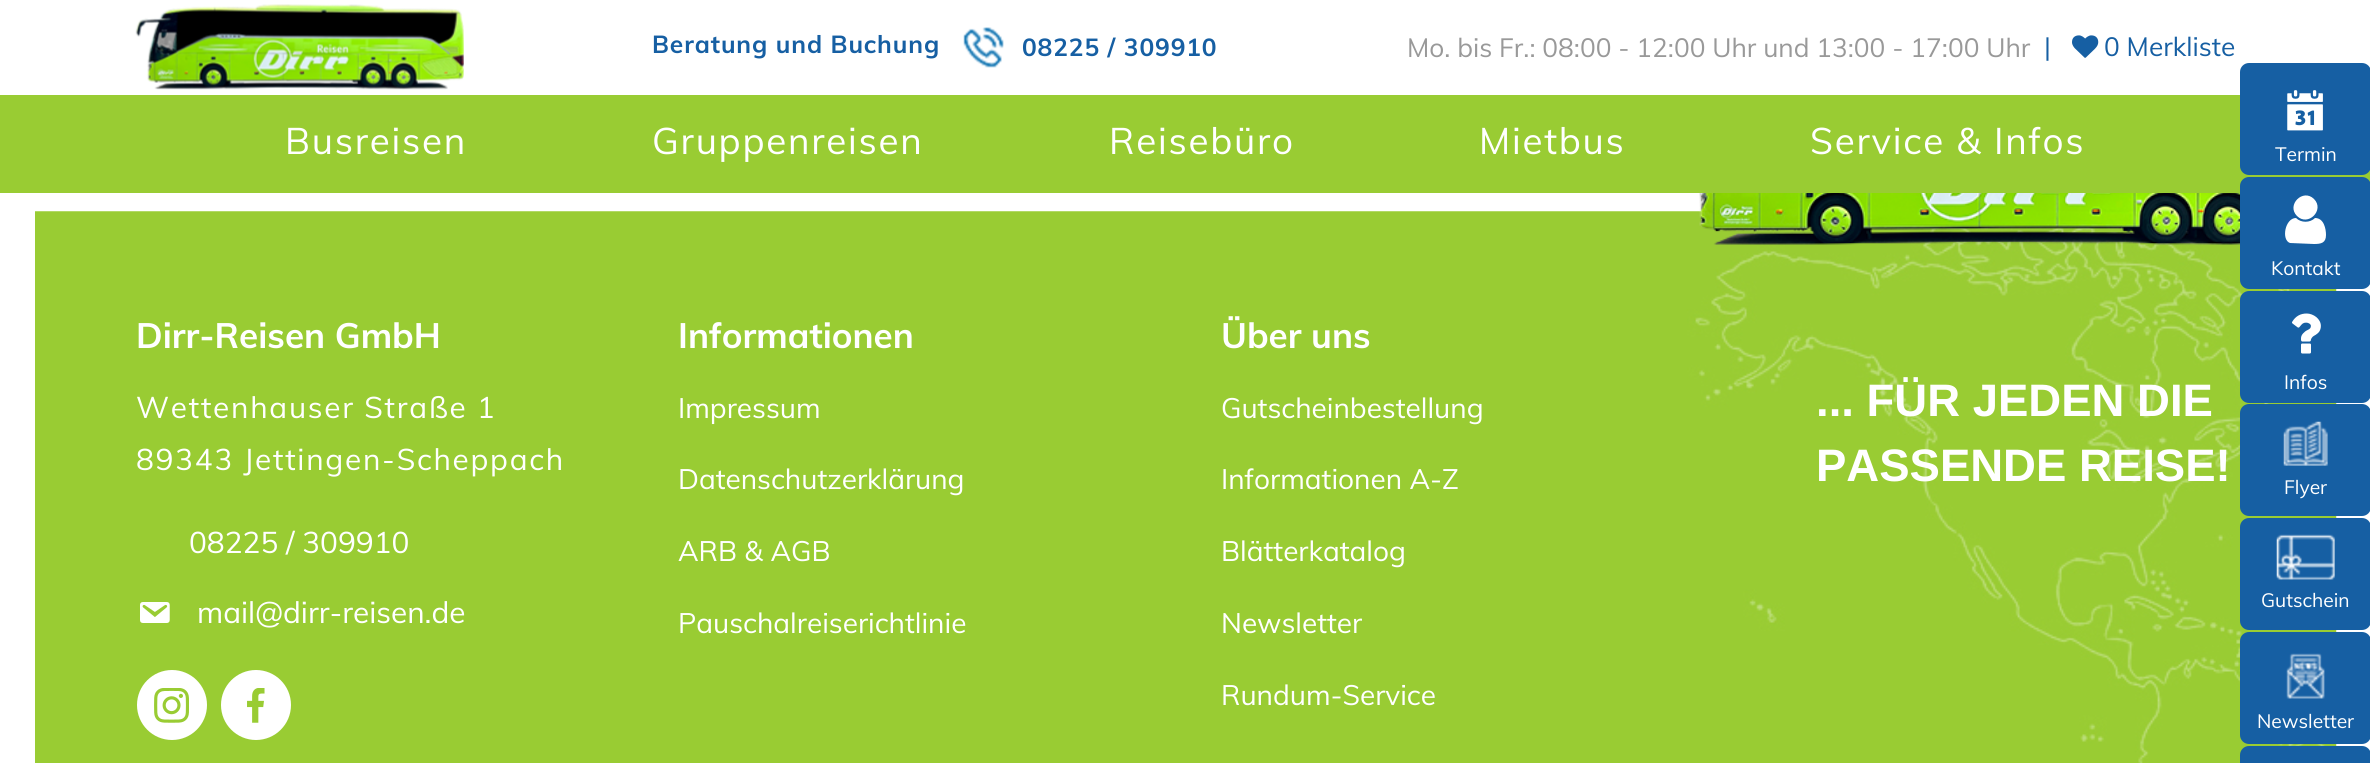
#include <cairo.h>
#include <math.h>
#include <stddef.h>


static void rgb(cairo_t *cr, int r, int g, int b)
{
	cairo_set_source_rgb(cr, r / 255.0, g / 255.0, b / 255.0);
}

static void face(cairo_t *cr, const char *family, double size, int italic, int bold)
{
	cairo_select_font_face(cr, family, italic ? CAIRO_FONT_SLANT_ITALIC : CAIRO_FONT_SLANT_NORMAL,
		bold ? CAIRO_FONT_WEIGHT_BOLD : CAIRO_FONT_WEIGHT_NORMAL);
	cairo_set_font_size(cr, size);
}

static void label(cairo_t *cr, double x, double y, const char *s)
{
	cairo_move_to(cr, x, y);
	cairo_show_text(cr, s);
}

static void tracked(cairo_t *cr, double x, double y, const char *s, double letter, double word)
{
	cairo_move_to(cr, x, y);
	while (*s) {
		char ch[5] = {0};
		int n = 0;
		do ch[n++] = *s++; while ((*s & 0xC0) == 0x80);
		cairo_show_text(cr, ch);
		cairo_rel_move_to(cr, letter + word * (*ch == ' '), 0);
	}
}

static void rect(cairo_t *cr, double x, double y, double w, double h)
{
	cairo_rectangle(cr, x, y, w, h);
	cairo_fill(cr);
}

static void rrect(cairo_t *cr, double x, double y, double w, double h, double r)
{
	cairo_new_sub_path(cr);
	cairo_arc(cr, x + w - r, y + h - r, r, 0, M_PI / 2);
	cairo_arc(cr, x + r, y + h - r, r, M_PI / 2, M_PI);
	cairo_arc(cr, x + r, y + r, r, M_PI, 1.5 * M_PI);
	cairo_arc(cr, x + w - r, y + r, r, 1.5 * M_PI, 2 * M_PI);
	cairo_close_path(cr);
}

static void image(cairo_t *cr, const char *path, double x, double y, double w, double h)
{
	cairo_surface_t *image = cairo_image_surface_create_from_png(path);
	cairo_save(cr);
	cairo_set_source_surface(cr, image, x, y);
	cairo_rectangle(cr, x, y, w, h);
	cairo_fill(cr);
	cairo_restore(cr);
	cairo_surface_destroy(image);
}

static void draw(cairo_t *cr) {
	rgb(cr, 255, 255, 255);
	cairo_paint(cr);
	image(cr, "image0.png", 135, 4, 329, 86);
	face(cr, "Muli", 24.5, 0, 1);
	rgb(cr, 22, 95, 163);
	tracked(cr, 652, 53, "Beratung und Buchung", 0.9, 0);
	image(cr, "image1.png", 963, 27, 41, 41);
	tracked(cr, 1022, 56, "08225 / 309910", 0.9, 0);
	face(cr, "Muli", 26.25, 0, 0);
	rgb(cr, 153, 153, 153);
	label(cr, 1407, 57, "Mo. bis Fr.: 08:00 - 12:00 Uhr und 13:00 - 17:00 Uhr");
	rgb(cr, 22, 95, 163);
	label(cr, 2044, 56, "|");
	image(cr, "image2.png", 2072, 35, 27, 23);
	label(cr, 2104, 56, "0 Merkliste");
	rgb(cr, 153, 204, 51);
	rect(cr, 0, 95, 2370, 98);
	face(cr, "Muli", 36.75, 0, 0);
	rgb(cr, 255, 255, 255);
	tracked(cr, 285, 154, "Busreisen", 1.75, 0);
	tracked(cr, 652, 154, "Gruppenreisen", 1.75, 0);
	tracked(cr, 1109, 154, "Reisebüro", 1.75, 0);
	tracked(cr, 1479, 154, "Mietbus", 1.75, 0);
	tracked(cr, 1810, 154, "Service & Infos", 1.75, 0);
	rgb(cr, 22, 95, 163);
	rrect(cr, 2240, 63, 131, 112, 9);
	cairo_fill(cr);
	image(cr, "image3.png", 2287, 90, 36, 41);
	face(cr, "Muli", 19.25, 0, 0);
	rgb(cr, 255, 255, 255);
	label(cr, 2275, 161, "Termin");
	image(cr, "image8.png", 35, 211, 2302, 552);
	rgb(cr, 22, 95, 163);
	rrect(cr, 2240, 177, 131, 112, 9);
	cairo_fill(cr);
	rgb(cr, 255, 255, 255);
	cairo_new_path(cr);
	cairo_move_to(cr, 2326, 235);
	cairo_curve_to(cr, 2326, 243, 2321, 244, 2314, 244);
	cairo_line_to(cr, 2290, 243);
	cairo_curve_to(cr, 2281, 240, 2285, 218, 2296, 218);
	cairo_curve_to(cr, 2301, 223, 2310, 223, 2315, 218);
	cairo_curve_to(cr, 2324, 218, 2326, 229, 2326, 235);
	cairo_close_path(cr);
	cairo_move_to(cr, 2314, 199);
	cairo_curve_to(cr, 2325, 210, 2308, 227, 2297, 216);
	cairo_curve_to(cr, 2286, 205, 2303, 188, 2314, 199);
	cairo_close_path(cr);
	cairo_fill(cr);
	label(cr, 2271, 275, "Kontakt");
	rgb(cr, 22, 95, 163);
	rrect(cr, 2240, 291, 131, 112, 9);
	cairo_fill(cr);
	image(cr, "image4.png", 2292, 313, 29, 41);
	rgb(cr, 255, 255, 255);
	label(cr, 2284, 389, "Infos");
	rgb(cr, 22, 95, 163);
	rrect(cr, 2240, 404, 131, 112, 9);
	cairo_fill(cr);
	image(cr, "image5.png", 2283, 421, 45, 45);
	rgb(cr, 255, 255, 255);
	label(cr, 2284, 494, "Flyer");
	rgb(cr, 22, 95, 163);
	rrect(cr, 2240, 518, 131, 112, 9);
	cairo_fill(cr);
	image(cr, "image6.png", 2276, 534, 59, 46);
	rgb(cr, 255, 255, 255);
	label(cr, 2261, 607, "Gutschein");
	rgb(cr, 22, 95, 163);
	rrect(cr, 2240, 632, 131, 112, 9);
	cairo_fill(cr);
	image(cr, "image7.png", 2286, 653, 39, 46);
	rgb(cr, 255, 255, 255);
	label(cr, 2257, 728, "Newsletter");
	rgb(cr, 22, 95, 163);
	rrect(cr, 2240, 746, 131, 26, 9);
	cairo_fill(cr);
	face(cr, "Muli", 35, 0, 1);
	rgb(cr, 255, 255, 255);
	label(cr, 136, 348, "Dirr-Reisen GmbH");
	face(cr, "Muli", 29.75, 0, 0);
	tracked(cr, 136, 418, "Wettenhauser Straße 1", 1.75, 0);
	tracked(cr, 136, 470, "89343 Jettingen-Scheppach", 1.75, 0);
	label(cr, 189, 553, "08225 / 309910");
	image(cr, "image9.png", 140, 602, 30, 21);
	label(cr, 197, 623, "mail@dirr-reisen.de");
	cairo_new_path(cr);
	cairo_arc(cr, 172, 705, 35, 0, 2 * M_PI);
	cairo_fill(cr);
	image(cr, "image10.png", 154, 688, 35, 35);
	cairo_arc(cr, 256, 705, 35, 0, 2 * M_PI);
	cairo_fill(cr);
	image(cr, "image11.png", 247, 688, 18, 35);
	face(cr, "Muli", 35, 0, 1);
	label(cr, 678, 348, "Informationen");
	face(cr, "Muli", 28, 0, 0);
	label(cr, 678, 418, "Impressum");
	label(cr, 678, 489, "Datenschutzerklärung");
	label(cr, 678, 561, "ARB & AGB");
	label(cr, 678, 633, "Pauschalreiserichtlinie");
	face(cr, "Muli", 35, 0, 1);
	label(cr, 1221, 348, "Über uns");
	face(cr, "Muli", 28, 0, 0);
	label(cr, 1221, 418, "Gutscheinbestellung");
	label(cr, 1221, 489, "Informationen A-Z");
	label(cr, 1221, 561, "Blätterkatalog");
	label(cr, 1221, 633, "Newsletter");
	label(cr, 1221, 705, "Rundum-Service");
	image(cr, "image12.png", 1699, 193, 541, 52);
	face(cr, "Liberation Sans", 45.5, 0, 1);
	label(cr, 1816, 416, "... FÜR JEDEN DIE");
	label(cr, 1816, 481, "PASSENDE REISE!");
}

int main(void) {
	cairo_surface_t *surface = cairo_image_surface_create(CAIRO_FORMAT_RGB24, 2370, 763);
	cairo_t *cr = cairo_create(surface);
	cairo_font_options_t *options = cairo_font_options_create();
	cairo_font_options_set_hint_metrics(options, CAIRO_HINT_METRICS_OFF);
	cairo_font_options_set_hint_style(options, CAIRO_HINT_STYLE_NONE);
	cairo_set_font_options(cr, options);
	cairo_set_miter_limit(cr, 4);
	draw(cr);
	cairo_surface_write_to_png(surface, "render.png");
	cairo_font_options_destroy(options);
	cairo_destroy(cr);
	cairo_surface_destroy(surface);
	return 0;
}
